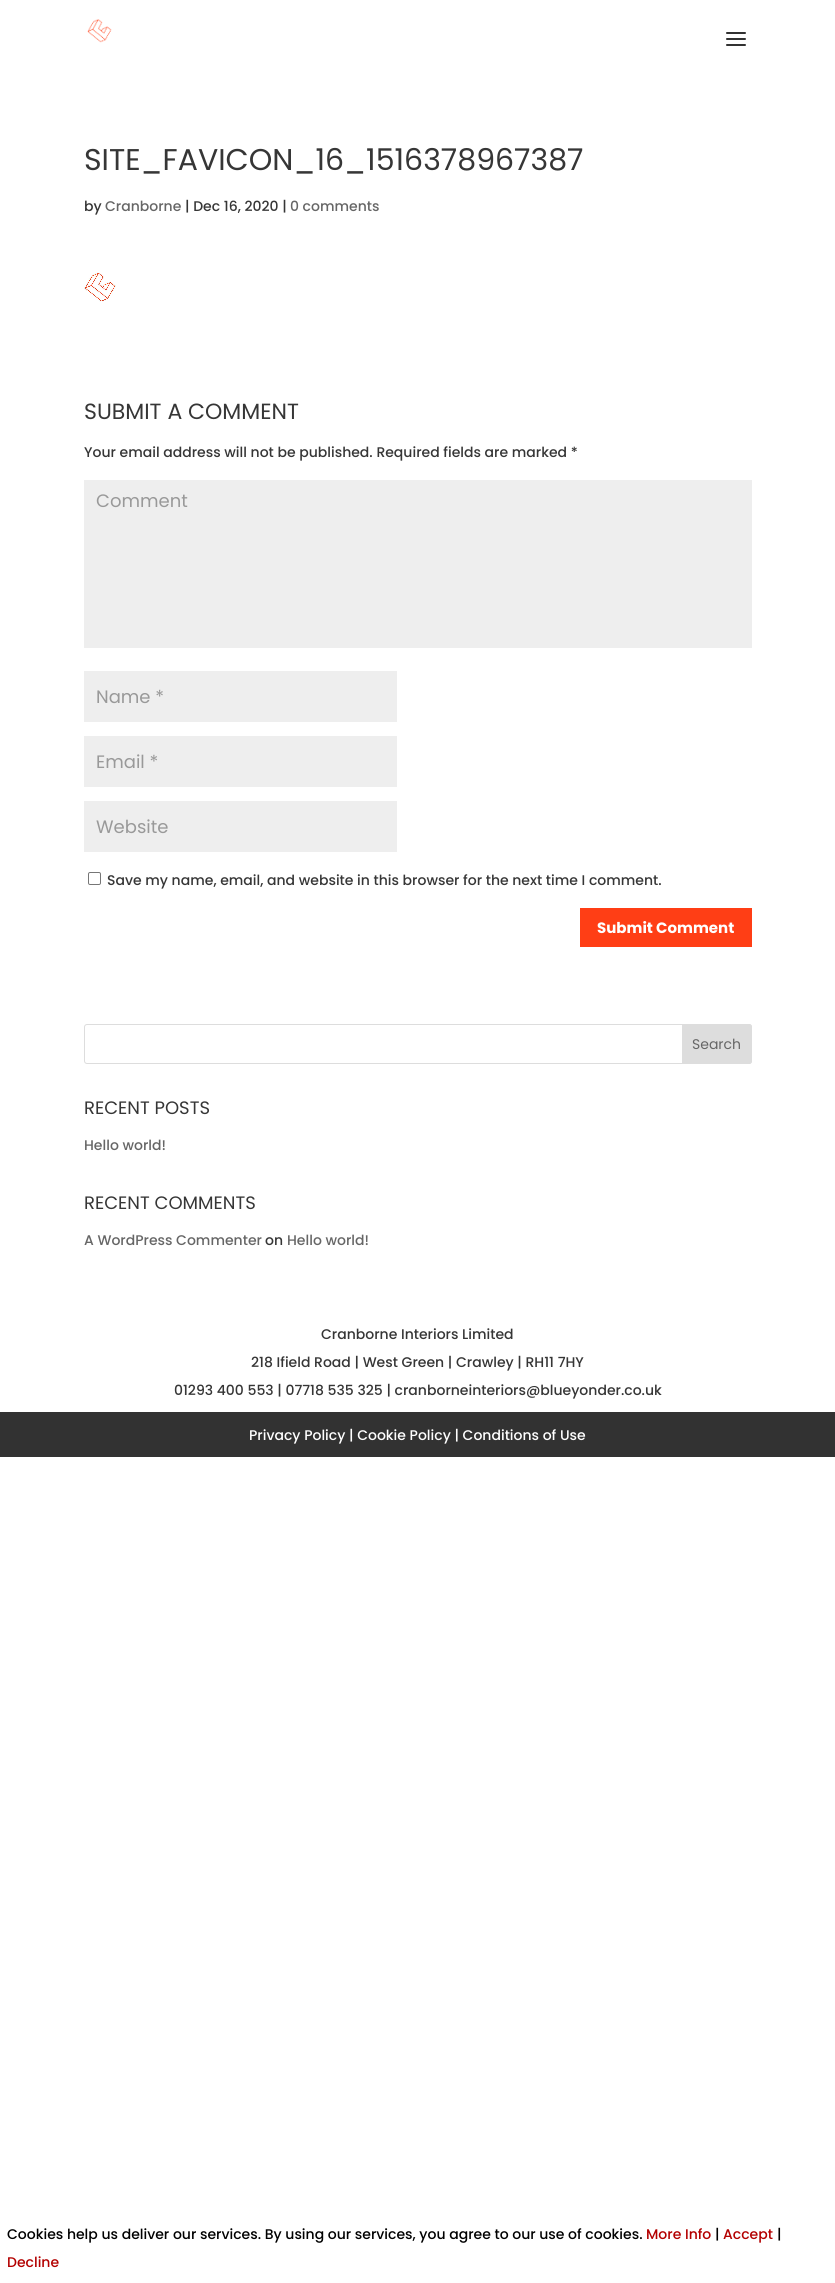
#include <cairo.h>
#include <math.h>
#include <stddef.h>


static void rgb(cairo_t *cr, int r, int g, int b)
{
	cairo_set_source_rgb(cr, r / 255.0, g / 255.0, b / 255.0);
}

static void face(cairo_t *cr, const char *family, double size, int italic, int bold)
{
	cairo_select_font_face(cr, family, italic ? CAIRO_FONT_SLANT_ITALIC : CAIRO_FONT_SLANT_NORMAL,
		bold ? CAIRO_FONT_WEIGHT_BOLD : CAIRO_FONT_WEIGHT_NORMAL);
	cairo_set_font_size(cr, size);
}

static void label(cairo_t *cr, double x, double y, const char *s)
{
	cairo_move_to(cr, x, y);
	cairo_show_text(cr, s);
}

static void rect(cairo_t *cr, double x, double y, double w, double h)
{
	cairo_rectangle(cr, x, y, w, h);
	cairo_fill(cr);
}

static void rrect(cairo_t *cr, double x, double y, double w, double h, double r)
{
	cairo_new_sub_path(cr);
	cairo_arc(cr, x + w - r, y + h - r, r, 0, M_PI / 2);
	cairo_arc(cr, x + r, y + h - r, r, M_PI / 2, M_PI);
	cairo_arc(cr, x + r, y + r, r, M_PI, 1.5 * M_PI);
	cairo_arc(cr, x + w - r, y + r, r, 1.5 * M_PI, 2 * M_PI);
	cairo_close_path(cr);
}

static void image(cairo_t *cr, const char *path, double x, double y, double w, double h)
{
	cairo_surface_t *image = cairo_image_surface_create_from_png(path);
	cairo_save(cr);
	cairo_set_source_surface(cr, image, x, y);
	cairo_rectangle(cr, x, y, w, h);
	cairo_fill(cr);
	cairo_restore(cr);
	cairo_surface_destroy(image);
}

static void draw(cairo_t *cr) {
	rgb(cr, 255, 255, 255);
	cairo_paint(cr);
	image(cr, "image0.png", 87, 19, 25, 24);
	image(cr, "image1.png", 726, 32, 20, 14);
	face(cr, "Poppins", 30, 0, 0);
	rgb(cr, 54, 54, 54);
	label(cr, 84, 170, "SITE_FAVICON_16_1516378967387");
	face(cr, "Poppins Medium", 14, 0, 0);
	label(cr, 84, 211, "by");
	rgb(cr, 102, 102, 102);
	label(cr, 105, 211, "Cranborne");
	rgb(cr, 54, 54, 54);
	label(cr, 185, 211, "| Dec 16, 2020 |");
	rgb(cr, 102, 102, 102);
	label(cr, 290, 211, "0 comments");
	image(cr, "image2.png", 84, 272, 32, 30);
	face(cr, "Poppins", 22, 0, 0);
	rgb(cr, 54, 54, 54);
	label(cr, 84, 419, "SUBMIT A COMMENT");
	face(cr, "Poppins Medium", 14, 0, 0);
	label(cr, 84, 457, "Your email address will not be published. Required fields are marked *");
	rgb(cr, 238, 238, 238);
	rect(cr, 84, 480, 668, 168);
	face(cr, "Poppins", 18, 0, 0);
	rgb(cr, 153, 153, 153);
	label(cr, 96, 507, "Comment");
	rgb(cr, 238, 238, 238);
	rect(cr, 84, 671, 313, 51);
	rgb(cr, 153, 153, 153);
	label(cr, 96, 703, "Name *");
	rgb(cr, 238, 238, 238);
	rect(cr, 84, 736, 313, 51);
	rgb(cr, 153, 153, 153);
	label(cr, 96, 768, "Email *");
	rgb(cr, 238, 238, 238);
	rect(cr, 84, 801, 313, 51);
	rgb(cr, 153, 153, 153);
	label(cr, 96, 833, "Website");
	rrect(cr, 88.5, 872.5, 12, 12, 1.5);
	rgb(cr, 118, 118, 118);
	cairo_set_line_width(cr, 1);
	cairo_stroke(cr);
	face(cr, "Poppins Medium", 14, 0, 0);
	rgb(cr, 54, 54, 54);
	label(cr, 107, 885, "Save my name, email, and website in this browser for the next time I comment.");
	rgb(cr, 255, 62, 21);
	rect(cr, 580, 908, 172, 39);
	face(cr, "Poppins", 15, 0, 1);
	rgb(cr, 255, 255, 255);
	label(cr, 597, 933, "Submit Comment");
	rrect(cr, 84.5, 1024.5, 667, 39, 2.5);
	rgb(cr, 221, 221, 221);
	cairo_stroke(cr);
	cairo_new_path(cr);
	cairo_move_to(cr, 682.5, 1024.5);
	cairo_line_to(cr, 749, 1024.5);
	cairo_curve_to(cr, 750.5, 1024.5, 751.5, 1025.5, 751.5, 1027);
	cairo_line_to(cr, 751.5, 1061);
	cairo_curve_to(cr, 751.5, 1062.5, 750.5, 1063.5, 749, 1063.5);
	cairo_line_to(cr, 682.5, 1063.5);
	cairo_close_path(cr);
	cairo_fill_preserve(cr);
	cairo_stroke(cr);
	face(cr, "Poppins", 14, 0, 0);
	rgb(cr, 102, 102, 102);
	label(cr, 692, 1049, "Search");
	face(cr, "Poppins", 18, 0, 0);
	rgb(cr, 54, 54, 54);
	label(cr, 84, 1114, "RECENT POSTS");
	face(cr, "Poppins Medium", 14, 0, 0);
	rgb(cr, 102, 102, 102);
	label(cr, 84, 1150, "Hello world!");
	face(cr, "Poppins", 18, 0, 0);
	rgb(cr, 54, 54, 54);
	label(cr, 84, 1209, "RECENT COMMENTS");
	face(cr, "Poppins Medium", 14, 0, 0);
	rgb(cr, 102, 102, 102);
	label(cr, 84, 1245, "A WordPress Commenter");
	rgb(cr, 54, 54, 54);
	label(cr, 265, 1245, "on");
	rgb(cr, 102, 102, 102);
	label(cr, 287, 1245, "Hello world!");
	rgb(cr, 54, 54, 54);
	label(cr, 321, 1339, "Cranborne Interiors Limited");
	label(cr, 251, 1367, "218 Ifield Road | West Green | Crawley | RH11 7HY");
	label(cr, 174, 1395, "01293 400 553 | 07718 535 325 | cranborneinteriors@blueyonder.co.uk");
	rgb(cr, 50, 50, 50);
	rect(cr, 0, 1412, 835, 45);
	rgb(cr, 255, 255, 255);
	label(cr, 249, 1440, "Privacy Policy | Cookie Policy | Conditions of Use");
	rgb(cr, 0, 0, 0);
	label(cr, 7, 2239, "Cookies help us deliver our services. By using our services, you agree to our use of cookies.");
	rgb(cr, 179, 0, 0);
	label(cr, 646, 2239, "More Info");
	rgb(cr, 0, 0, 0);
	label(cr, 715, 2239, "|");
	rgb(cr, 179, 0, 0);
	label(cr, 723, 2239, "Accept");
	rgb(cr, 0, 0, 0);
	label(cr, 777, 2239, "|");
	rgb(cr, 179, 0, 0);
	label(cr, 7, 2267, "Decline");
}

int main(void) {
	cairo_surface_t *surface = cairo_image_surface_create(CAIRO_FORMAT_RGB24, 835, 2283);
	cairo_t *cr = cairo_create(surface);
	cairo_font_options_t *options = cairo_font_options_create();
	cairo_font_options_set_hint_metrics(options, CAIRO_HINT_METRICS_OFF);
	cairo_font_options_set_hint_style(options, CAIRO_HINT_STYLE_NONE);
	cairo_set_font_options(cr, options);
	cairo_set_miter_limit(cr, 4);
	draw(cr);
	cairo_surface_write_to_png(surface, "render.png");
	cairo_font_options_destroy(options);
	cairo_destroy(cr);
	cairo_surface_destroy(surface);
	return 0;
}
